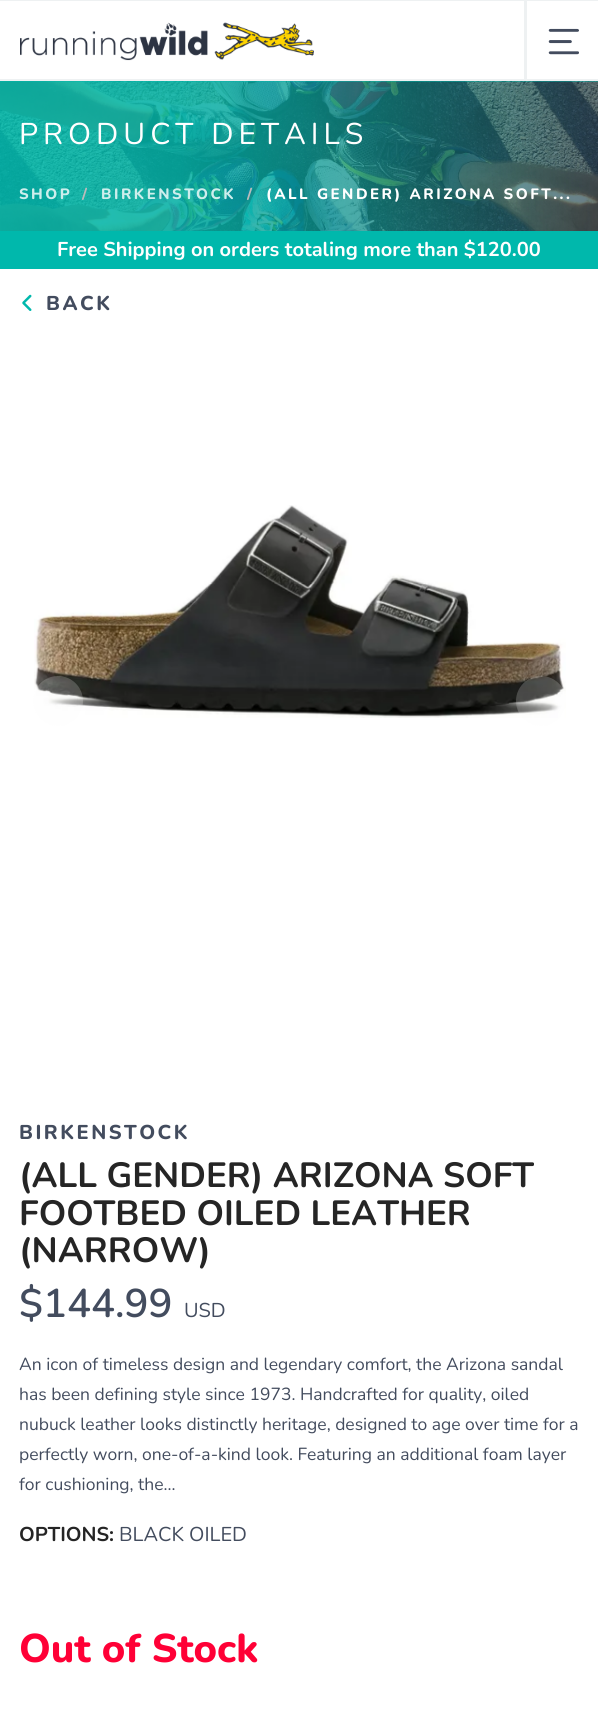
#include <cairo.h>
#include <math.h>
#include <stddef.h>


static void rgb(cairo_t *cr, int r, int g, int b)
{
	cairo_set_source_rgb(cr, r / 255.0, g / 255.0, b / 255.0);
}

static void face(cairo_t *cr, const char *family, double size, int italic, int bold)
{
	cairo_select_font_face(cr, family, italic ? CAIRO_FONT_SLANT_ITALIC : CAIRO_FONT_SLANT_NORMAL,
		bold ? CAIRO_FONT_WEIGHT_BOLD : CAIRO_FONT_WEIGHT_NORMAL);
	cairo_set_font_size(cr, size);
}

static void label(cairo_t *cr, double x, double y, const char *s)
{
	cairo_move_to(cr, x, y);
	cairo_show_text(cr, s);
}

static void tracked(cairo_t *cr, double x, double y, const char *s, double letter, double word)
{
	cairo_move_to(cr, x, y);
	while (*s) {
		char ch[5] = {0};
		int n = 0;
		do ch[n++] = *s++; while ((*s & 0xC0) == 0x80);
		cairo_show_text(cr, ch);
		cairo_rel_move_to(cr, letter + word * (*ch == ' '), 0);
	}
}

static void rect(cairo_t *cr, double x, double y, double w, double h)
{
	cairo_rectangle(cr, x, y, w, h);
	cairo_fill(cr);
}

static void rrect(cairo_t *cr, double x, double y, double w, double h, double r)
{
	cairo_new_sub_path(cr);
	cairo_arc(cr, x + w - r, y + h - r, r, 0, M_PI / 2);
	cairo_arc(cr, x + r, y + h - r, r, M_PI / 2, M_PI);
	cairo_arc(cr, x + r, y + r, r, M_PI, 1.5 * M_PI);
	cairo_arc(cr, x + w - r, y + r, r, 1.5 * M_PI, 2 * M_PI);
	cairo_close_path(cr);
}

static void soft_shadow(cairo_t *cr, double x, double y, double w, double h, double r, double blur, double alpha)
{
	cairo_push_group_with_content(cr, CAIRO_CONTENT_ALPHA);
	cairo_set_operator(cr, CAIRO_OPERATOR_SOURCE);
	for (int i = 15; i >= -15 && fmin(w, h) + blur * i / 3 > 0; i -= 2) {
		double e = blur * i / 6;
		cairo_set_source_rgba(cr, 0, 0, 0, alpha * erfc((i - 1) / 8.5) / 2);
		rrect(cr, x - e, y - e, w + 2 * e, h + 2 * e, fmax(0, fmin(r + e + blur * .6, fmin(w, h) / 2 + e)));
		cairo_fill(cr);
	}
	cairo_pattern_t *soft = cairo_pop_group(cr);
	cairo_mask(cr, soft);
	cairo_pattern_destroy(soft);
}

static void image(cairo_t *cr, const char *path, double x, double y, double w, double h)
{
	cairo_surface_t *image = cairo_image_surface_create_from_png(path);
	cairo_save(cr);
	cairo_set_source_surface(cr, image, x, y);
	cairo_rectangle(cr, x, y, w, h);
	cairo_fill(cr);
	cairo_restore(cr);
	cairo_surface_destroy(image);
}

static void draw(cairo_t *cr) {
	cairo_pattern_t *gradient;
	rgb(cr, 255, 255, 255);
	cairo_paint(cr);
	rgb(cr, 238, 241, 242);
	rect(cr, 0, 0, 598, 1);
	rect(cr, 0, 79, 598, 2);
	image(cr, "image0.png", 20, 22, 294, 39);
	rect(cr, 524, 1, 3, 78);
	image(cr, "image1.png", 548, 28, 31, 27);
	rgb(cr, 0, 184, 172);
	rect(cr, 0, 81, 598, 1);
	image(cr, "image2.png", 0, 81, 598, 150);
	gradient = cairo_pattern_create_linear(0, 156, 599, 156);
	cairo_pattern_add_color_stop_rgba(gradient, 0.3, 0, 0.722, 0.675, 0.7);
	cairo_pattern_add_color_stop_rgba(gradient, 1, 0, 0.722, 0.675, 0.07);
	cairo_set_source(cr, gradient);
	cairo_pattern_destroy(gradient);
	rect(cr, 0, 81, 598, 150);
	face(cr, "Nunito", 30, 0, 0);
	rgb(cr, 255, 255, 255);
	tracked(cr, 19, 144, "PRODUCT DETAILS", 5, 0);
	face(cr, "Nunito ExtraBold", 15, 0, 0);
	rgb(cr, 206, 238, 236);
	tracked(cr, 19, 199, "SHOP", 2.5, 0);
	rgb(cr, 187, 187, 187);
	tracked(cr, 82, 199, "/", 2.5, 0);
	rgb(cr, 206, 238, 236);
	tracked(cr, 101, 199, "BIRKENSTOCK", 2.5, 0);
	rgb(cr, 187, 187, 187);
	tracked(cr, 247, 199, "/", 2.5, 0);
	rgb(cr, 255, 255, 255);
	tracked(cr, 266, 199, "(ALL GENDER) ARIZONA SOFT...", 2.5, 0);
	image(cr, "image4.png", 22, 294, 10, 17);
	cairo_save(cr);
	rrect(cr, 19, 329, 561, 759, 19);
	cairo_clip(cr);
	cairo_set_fill_rule(cr, CAIRO_FILL_RULE_EVEN_ODD);
	cairo_new_path(cr);
	cairo_move_to(cr, 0, 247);
	cairo_line_to(cr, 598, 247);
	cairo_line_to(cr, 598, 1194);
	cairo_line_to(cr, 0, 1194);
	cairo_close_path(cr);
	cairo_move_to(cr, -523, 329);
	cairo_line_to(cr, 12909, 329);
	cairo_curve_to(cr, 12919.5, 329, 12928, 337.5, 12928, 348);
	cairo_line_to(cr, 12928, 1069);
	cairo_curve_to(cr, 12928, 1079.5, 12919.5, 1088, 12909, 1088);
	cairo_line_to(cr, -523, 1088);
	cairo_curve_to(cr, -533.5, 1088, -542, 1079.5, -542, 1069);
	cairo_line_to(cr, -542, 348);
	cairo_curve_to(cr, -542, 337.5, -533.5, 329, -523, 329);
	cairo_close_path(cr);
	cairo_clip(cr);
	rgb(cr, 0, 0, 0);
	soft_shadow(cr, -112, 341, 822, 759, 19, 31, 0.3);
	cairo_restore(cr);
	rgb(cr, 0, 184, 172);
	rect(cr, 0, 231, 598, 38);
	face(cr, "Nunito", 20, 0, 1);
	rgb(cr, 255, 255, 255);
	label(cr, 57, 256, "Free Shipping on orders totaling more than $120.00");
	image(cr, "image3.png", 34, 505, 532, 213);
	cairo_set_source_rgba(cr, 0.98, 0.98, 0.98, 0.2);
	cairo_arc(cr, 58, 701, 25, 0, 2 * M_PI);
	cairo_fill(cr);
	cairo_arc(cr, 541, 701, 25, 0, 2 * M_PI);
	cairo_fill(cr);
	face(cr, "Nunito ExtraBold", 20, 0, 0);
	rgb(cr, 67, 76, 94);
	tracked(cr, 46, 310, "BACK", 2.5, 0);
	tracked(cr, 19, 1139, "BIRKENSTOCK", 2.5, 0);
	face(cr, "Nunito", 35, 0, 1);
	rgb(cr, 37, 37, 37);
	label(cr, 19, 1187, "(ALL GENDER) ARIZONA SOFT");
	label(cr, 19, 1225, "FOOTBED OILED LEATHER");
	label(cr, 19, 1262, "(NARROW)");
	face(cr, "Nunito SemiBold", 40, 0, 0);
	rgb(cr, 67, 76, 94);
	label(cr, 19, 1317, "$144.99");
	face(cr, "Nunito", 20, 0, 0);
	label(cr, 184, 1317, "USD");
	face(cr, "Nunito", 17.5, 0, 0);
	label(cr, 19, 1370, "An icon of timeless design and legendary comfort, the Arizona sandal");
	label(cr, 19, 1400, "has been defining style since 1973. Handcrafted for quality, oiled");
	label(cr, 19, 1430, "nubuck leather looks distinctly heritage, designed to age over time for a");
	label(cr, 19, 1460, "perfectly worn, one-of-a-kind look. Featuring an additional foam layer");
	label(cr, 19, 1490, "for cushioning, the...");
	face(cr, "Nunito", 20, 0, 1);
	rgb(cr, 37, 37, 37);
	label(cr, 19, 1541, "OPTIONS:");
	face(cr, "Nunito", 20, 0, 0);
	rgb(cr, 67, 76, 94);
	label(cr, 119, 1541, "BLACK OILED");
	face(cr, "Nunito ExtraBold", 40, 0, 0);
	rgb(cr, 255, 0, 54);
	label(cr, 19, 1662, "Out of Stock");
}

int main(void) {
	cairo_surface_t *surface = cairo_image_surface_create(CAIRO_FORMAT_RGB24, 598, 1729);
	cairo_t *cr = cairo_create(surface);
	cairo_font_options_t *options = cairo_font_options_create();
	cairo_font_options_set_hint_metrics(options, CAIRO_HINT_METRICS_OFF);
	cairo_font_options_set_hint_style(options, CAIRO_HINT_STYLE_NONE);
	cairo_set_font_options(cr, options);
	cairo_set_miter_limit(cr, 4);
	draw(cr);
	cairo_surface_write_to_png(surface, "render.png");
	cairo_font_options_destroy(options);
	cairo_destroy(cr);
	cairo_surface_destroy(surface);
	return 0;
}
